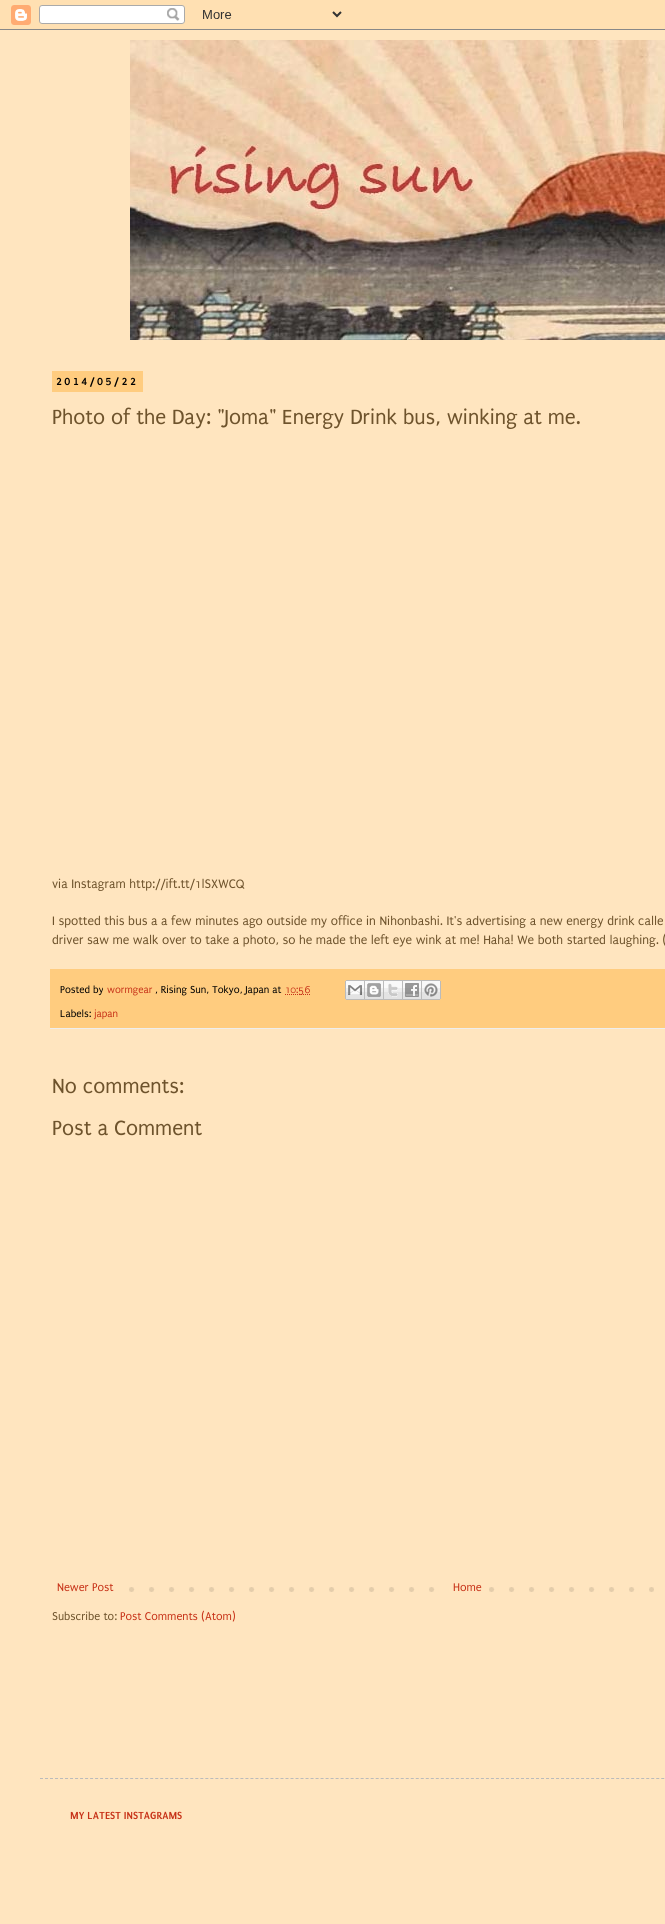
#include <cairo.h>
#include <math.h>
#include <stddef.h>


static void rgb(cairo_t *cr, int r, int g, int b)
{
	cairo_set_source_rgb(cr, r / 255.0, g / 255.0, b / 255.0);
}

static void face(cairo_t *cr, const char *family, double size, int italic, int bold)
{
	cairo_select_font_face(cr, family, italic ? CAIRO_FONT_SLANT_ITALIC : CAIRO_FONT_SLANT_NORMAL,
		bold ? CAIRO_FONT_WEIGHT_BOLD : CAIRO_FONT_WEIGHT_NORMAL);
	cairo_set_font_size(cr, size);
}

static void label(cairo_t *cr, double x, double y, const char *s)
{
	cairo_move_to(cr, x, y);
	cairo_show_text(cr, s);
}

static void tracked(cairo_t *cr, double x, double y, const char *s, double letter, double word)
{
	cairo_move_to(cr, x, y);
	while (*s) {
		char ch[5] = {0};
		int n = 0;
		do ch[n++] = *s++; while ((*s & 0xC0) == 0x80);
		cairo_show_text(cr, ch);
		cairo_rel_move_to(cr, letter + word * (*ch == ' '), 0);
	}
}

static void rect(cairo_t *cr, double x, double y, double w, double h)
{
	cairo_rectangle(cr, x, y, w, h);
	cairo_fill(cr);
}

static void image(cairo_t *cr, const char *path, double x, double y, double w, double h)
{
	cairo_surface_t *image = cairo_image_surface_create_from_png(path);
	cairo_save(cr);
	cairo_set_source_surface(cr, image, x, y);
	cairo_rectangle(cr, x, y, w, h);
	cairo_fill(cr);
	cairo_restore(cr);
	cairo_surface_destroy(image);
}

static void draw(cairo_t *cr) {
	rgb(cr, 255, 204, 127);
	cairo_paint(cr);
	image(cr, "image0.png", 0, 0, 665, 30);
	rgb(cr, 255, 229, 191);
	rect(cr, 0, 30, 665, 1894);
	image(cr, "image1.png", 130, 40, 535, 300);
	rgb(cr, 255, 204, 127);
	rect(cr, 52, 371, 91, 21);
	face(cr, "Puritan", 11, 0, 1);
	rgb(cr, 0, 0, 0);
	tracked(cr, 56, 385, "2014/05/22", 3, 0);
	face(cr, "Puritan", 22, 0, 0);
	rgb(cr, 110, 83, 44);
	label(cr, 52, 424, "Photo of the Day: \"Joma\" Energy Drink bus, winking at me.");
	face(cr, "Puritan", 13.2, 0, 0);
	label(cr, 52, 888, "via Instagram http://ift.tt/1lSXWCQ");
	label(cr, 52, 925, "I spotted this bus a a few minutes ago outside my office in Nihonbashi. It's advertising a new energy drink calle");
	label(cr, 52, 944, "driver saw me walk over to take a photo, so he made the left eye wink at me! Haha! We both started laughing. (");
	rgb(cr, 255, 204, 127);
	rect(cr, 50, 969, 615, 59);
	rgb(cr, 238, 238, 238);
	rect(cr, 50, 1028, 615, 1);
	face(cr, "Puritan", 10.75, 0, 0);
	rgb(cr, 0, 0, 0);
	label(cr, 60, 993, "Posted by");
	rgb(cr, 199, 50, 24);
	label(cr, 107, 993, "wormgear");
	rgb(cr, 0, 0, 0);
	label(cr, 155, 993, ", Rising Sun, Tokyo, Japan at");
	cairo_new_path(cr);
	cairo_move_to(cr, 285, 994.5);
	cairo_line_to(cr, 310.5, 994.5);
	rgb(cr, 199, 50, 24);
	cairo_set_line_width(cr, 1);
	cairo_set_dash(cr, (double[]){1, 1}, 2, 0);
	cairo_stroke(cr);
	label(cr, 285, 993, "10:56");
	image(cr, "image2.png", 345, 980, 20, 20);
	image(cr, "image3.png", 365, 980, 19, 20);
	image(cr, "image4.png", 384, 980, 19, 20);
	image(cr, "image5.png", 403, 980, 19, 20);
	image(cr, "image6.png", 422, 980, 19, 20);
	rgb(cr, 0, 0, 0);
	label(cr, 60, 1017, "Labels:");
	rgb(cr, 199, 50, 24);
	label(cr, 94, 1017, "japan");
	face(cr, "Puritan", 22, 0, 0);
	rgb(cr, 110, 83, 44);
	label(cr, 52, 1093, "No comments:");
	label(cr, 52, 1135, "Post a Comment");
	image(cr, "image7.png", 129, 1587, 525, 5);
	face(cr, "Puritan", 12, 0, 0);
	rgb(cr, 199, 50, 24);
	label(cr, 57, 1591, "Newer Post");
	rgb(cr, 255, 229, 191);
	rect(cr, 449, 1587, 26, 5);
	rgb(cr, 199, 50, 24);
	label(cr, 453, 1591, "Home");
	rgb(cr, 110, 83, 44);
	label(cr, 52, 1620, "Subscribe to:");
	rgb(cr, 199, 50, 24);
	label(cr, 120, 1620, "Post Comments (Atom)");
	cairo_new_path(cr);
	cairo_move_to(cr, 40, 1778.5);
	cairo_line_to(cr, 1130, 1778.5);
	rgb(cr, 187, 187, 187);
	cairo_set_dash(cr, (double[]){3, 2.01}, 2, 0);
	cairo_stroke(cr);
	face(cr, "Puritan", 11, 0, 1);
	rgb(cr, 199, 50, 24);
	label(cr, 70, 1819, "MY LATEST INSTAGRAMS");
}

int main(void) {
	cairo_surface_t *surface = cairo_image_surface_create(CAIRO_FORMAT_RGB24, 665, 1924);
	cairo_t *cr = cairo_create(surface);
	cairo_font_options_t *options = cairo_font_options_create();
	cairo_font_options_set_hint_metrics(options, CAIRO_HINT_METRICS_OFF);
	cairo_font_options_set_hint_style(options, CAIRO_HINT_STYLE_NONE);
	cairo_set_font_options(cr, options);
	cairo_set_miter_limit(cr, 4);
	draw(cr);
	cairo_surface_write_to_png(surface, "render.png");
	cairo_font_options_destroy(options);
	cairo_destroy(cr);
	cairo_surface_destroy(surface);
	return 0;
}
